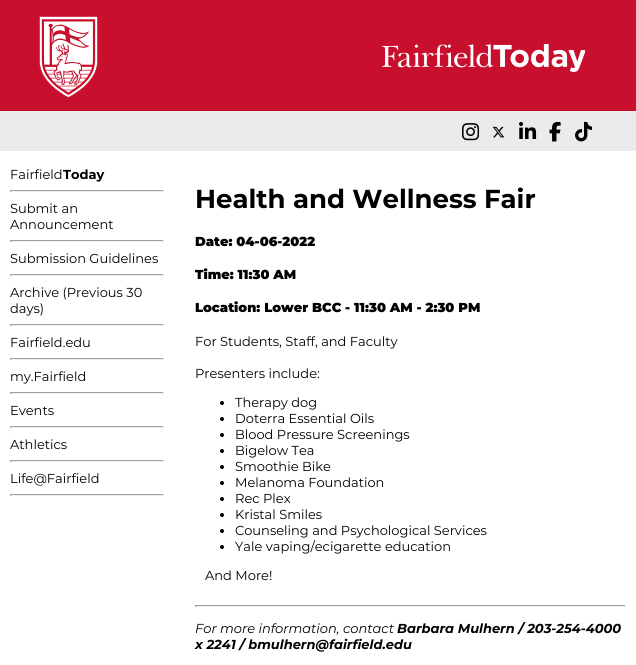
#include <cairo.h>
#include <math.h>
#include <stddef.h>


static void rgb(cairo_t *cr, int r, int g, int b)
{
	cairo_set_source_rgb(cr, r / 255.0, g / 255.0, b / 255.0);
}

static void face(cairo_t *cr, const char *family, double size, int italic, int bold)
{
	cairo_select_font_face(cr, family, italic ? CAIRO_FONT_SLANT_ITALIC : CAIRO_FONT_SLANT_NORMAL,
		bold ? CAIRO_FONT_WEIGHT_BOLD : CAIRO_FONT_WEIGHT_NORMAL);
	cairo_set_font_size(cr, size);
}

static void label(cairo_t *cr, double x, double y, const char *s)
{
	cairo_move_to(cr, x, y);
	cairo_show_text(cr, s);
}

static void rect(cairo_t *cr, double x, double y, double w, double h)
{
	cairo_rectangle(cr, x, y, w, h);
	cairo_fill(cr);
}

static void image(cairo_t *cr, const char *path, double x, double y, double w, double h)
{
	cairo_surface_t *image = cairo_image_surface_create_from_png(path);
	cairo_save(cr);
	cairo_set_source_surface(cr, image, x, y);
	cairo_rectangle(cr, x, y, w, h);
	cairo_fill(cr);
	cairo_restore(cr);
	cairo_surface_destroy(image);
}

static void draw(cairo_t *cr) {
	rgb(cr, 255, 255, 255);
	cairo_paint(cr);
	rgb(cr, 200, 16, 46);
	rect(cr, 0, 0, 636, 111);
	image(cr, "image0.png", 39, 16, 59, 82);
	image(cr, "image1.png", 382, 44, 203, 28);
	rgb(cr, 234, 235, 236);
	rect(cr, 0, 111, 636, 40);
	image(cr, "image2.png", 462, 123, 18, 18);
	image(cr, "image3.png", 492, 126, 13, 12);
	image(cr, "image4.png", 519, 122, 18, 17);
	image(cr, "image5.png", 549, 121, 12, 21);
	image(cr, "image6.png", 575, 121, 18, 21);
	face(cr, "Montserrat", 13, 0, 0);
	rgb(cr, 0, 0, 0);
	label(cr, 10, 179, "Fairfield");
	face(cr, "Montserrat", 13, 0, 1);
	label(cr, 63, 179, "Today");
	rgb(cr, 159, 159, 159);
	rect(cr, 10, 190, 154, 1);
	rgb(cr, 238, 238, 238);
	rect(cr, 163, 190, 1, 2);
	rect(cr, 10, 191, 154, 1);
	rgb(cr, 159, 159, 159);
	rect(cr, 10, 190, 1, 2);
	face(cr, "Montserrat", 13, 0, 0);
	rgb(cr, 0, 0, 0);
	label(cr, 10, 213, "Submit an");
	label(cr, 10, 229, "Announcement");
	rgb(cr, 159, 159, 159);
	rect(cr, 10, 240, 154, 1);
	rgb(cr, 238, 238, 238);
	rect(cr, 163, 240, 1, 2);
	rect(cr, 10, 241, 154, 1);
	rgb(cr, 159, 159, 159);
	rect(cr, 10, 240, 1, 2);
	rgb(cr, 0, 0, 0);
	label(cr, 10, 263, "Submission Guidelines");
	rgb(cr, 159, 159, 159);
	rect(cr, 10, 274, 154, 1);
	rgb(cr, 238, 238, 238);
	rect(cr, 163, 274, 1, 2);
	rect(cr, 10, 275, 154, 1);
	rgb(cr, 159, 159, 159);
	rect(cr, 10, 274, 1, 2);
	rgb(cr, 0, 0, 0);
	label(cr, 10, 297, "Archive (Previous 30");
	label(cr, 10, 313, "days)");
	rgb(cr, 159, 159, 159);
	rect(cr, 10, 324, 154, 1);
	rgb(cr, 238, 238, 238);
	rect(cr, 163, 324, 1, 2);
	rect(cr, 10, 325, 154, 1);
	rgb(cr, 159, 159, 159);
	rect(cr, 10, 324, 1, 2);
	rgb(cr, 0, 0, 0);
	label(cr, 10, 347, "Fairfield.edu");
	rgb(cr, 159, 159, 159);
	rect(cr, 10, 358, 154, 1);
	rgb(cr, 238, 238, 238);
	rect(cr, 163, 358, 1, 2);
	rect(cr, 10, 359, 154, 1);
	rgb(cr, 159, 159, 159);
	rect(cr, 10, 358, 1, 2);
	rgb(cr, 0, 0, 0);
	label(cr, 10, 381, "my.Fairfield");
	rgb(cr, 159, 159, 159);
	rect(cr, 10, 392, 154, 1);
	rgb(cr, 238, 238, 238);
	rect(cr, 163, 392, 1, 2);
	rect(cr, 10, 393, 154, 1);
	rgb(cr, 159, 159, 159);
	rect(cr, 10, 392, 1, 2);
	rgb(cr, 0, 0, 0);
	label(cr, 10, 415, "Events");
	rgb(cr, 159, 159, 159);
	rect(cr, 10, 426, 154, 1);
	rgb(cr, 238, 238, 238);
	rect(cr, 163, 426, 1, 2);
	rect(cr, 10, 427, 154, 1);
	rgb(cr, 159, 159, 159);
	rect(cr, 10, 426, 1, 2);
	rgb(cr, 0, 0, 0);
	label(cr, 10, 449, "Athletics");
	rgb(cr, 159, 159, 159);
	rect(cr, 10, 460, 154, 1);
	rgb(cr, 238, 238, 238);
	rect(cr, 163, 460, 1, 2);
	rect(cr, 10, 461, 154, 1);
	rgb(cr, 159, 159, 159);
	rect(cr, 10, 460, 1, 2);
	rgb(cr, 0, 0, 0);
	label(cr, 10, 483, "Life@Fairfield");
	rgb(cr, 159, 159, 159);
	rect(cr, 10, 494, 154, 1);
	rgb(cr, 238, 238, 238);
	rect(cr, 163, 494, 1, 2);
	rect(cr, 10, 495, 154, 1);
	rgb(cr, 159, 159, 159);
	rect(cr, 10, 494, 1, 2);
	face(cr, "Montserrat", 26, 0, 1);
	rgb(cr, 0, 0, 0);
	label(cr, 195, 208, "Health and Wellness Fair");
	face(cr, "Montserrat Black", 13, 0, 0);
	label(cr, 195, 246, "Date: 04-06-2022");
	label(cr, 195, 279, "Time: 11:30 AM");
	label(cr, 195, 312, "Location: Lower BCC - 11:30 AM - 2:30 PM");
	face(cr, "Montserrat", 13, 0, 0);
	label(cr, 195, 346, "For Students, Staff, and Faculty");
	label(cr, 195, 378, "Presenters include:");
	cairo_new_path(cr);
	cairo_arc(cr, 222, 403, 2, 0, 2 * M_PI);
	cairo_fill(cr);
	label(cr, 235, 407, "Therapy dog");
	cairo_new_path(cr);
	cairo_arc(cr, 222, 419, 2, 0, 2 * M_PI);
	cairo_fill(cr);
	label(cr, 235, 423, "Doterra Essential Oils");
	cairo_new_path(cr);
	cairo_arc(cr, 222, 435, 2, 0, 2 * M_PI);
	cairo_fill(cr);
	label(cr, 235, 439, "Blood Pressure Screenings");
	cairo_new_path(cr);
	cairo_arc(cr, 222, 451, 2, 0, 2 * M_PI);
	cairo_fill(cr);
	label(cr, 235, 455, "Bigelow Tea");
	cairo_new_path(cr);
	cairo_arc(cr, 222, 467, 2, 0, 2 * M_PI);
	cairo_fill(cr);
	label(cr, 235, 471, "Smoothie Bike");
	cairo_new_path(cr);
	cairo_arc(cr, 222, 483, 2, 0, 2 * M_PI);
	cairo_fill(cr);
	label(cr, 235, 487, "Melanoma Foundation");
	cairo_new_path(cr);
	cairo_arc(cr, 222, 499, 2, 0, 2 * M_PI);
	cairo_fill(cr);
	label(cr, 235, 503, "Rec Plex");
	cairo_new_path(cr);
	cairo_arc(cr, 222, 515, 2, 0, 2 * M_PI);
	cairo_fill(cr);
	label(cr, 235, 519, "Kristal Smiles");
	cairo_new_path(cr);
	cairo_arc(cr, 222, 531, 2, 0, 2 * M_PI);
	cairo_fill(cr);
	label(cr, 235, 535, "Counseling and Psychological Services");
	cairo_new_path(cr);
	cairo_arc(cr, 222, 547, 2, 0, 2 * M_PI);
	cairo_fill(cr);
	label(cr, 235, 551, "Yale vaping/ecigarette education");
	label(cr, 205, 580, "And More!");
	rgb(cr, 159, 159, 159);
	rect(cr, 195, 605, 431, 1);
	rgb(cr, 238, 238, 238);
	rect(cr, 625, 605, 1, 2);
	rect(cr, 195, 606, 431, 1);
	rgb(cr, 159, 159, 159);
	rect(cr, 195, 605, 1, 2);
	face(cr, "Montserrat", 13, 1, 0);
	rgb(cr, 0, 0, 0);
	label(cr, 195, 633, "For more information, contact");
	face(cr, "Montserrat", 13, 1, 1);
	label(cr, 397, 633, "Barbara Mulhern / 203-254-4000");
	label(cr, 195, 649, "x 2241 / bmulhern@fairfield.edu");
}

int main(void) {
	cairo_surface_t *surface = cairo_image_surface_create(CAIRO_FORMAT_RGB24, 636, 665);
	cairo_t *cr = cairo_create(surface);
	cairo_font_options_t *options = cairo_font_options_create();
	cairo_font_options_set_hint_metrics(options, CAIRO_HINT_METRICS_OFF);
	cairo_font_options_set_hint_style(options, CAIRO_HINT_STYLE_NONE);
	cairo_set_font_options(cr, options);
	cairo_set_miter_limit(cr, 4);
	draw(cr);
	cairo_surface_write_to_png(surface, "render.png");
	cairo_font_options_destroy(options);
	cairo_destroy(cr);
	cairo_surface_destroy(surface);
	return 0;
}
